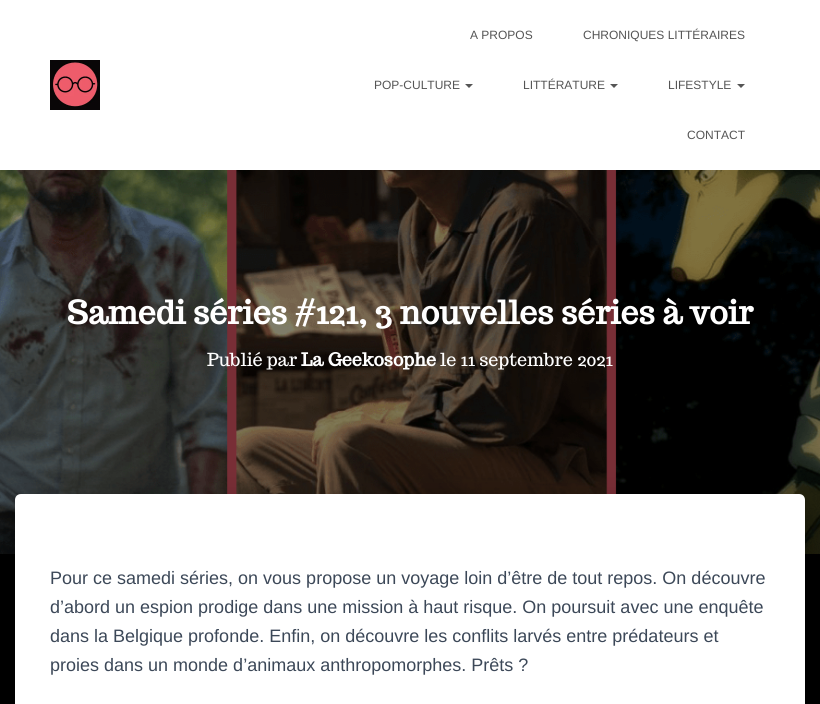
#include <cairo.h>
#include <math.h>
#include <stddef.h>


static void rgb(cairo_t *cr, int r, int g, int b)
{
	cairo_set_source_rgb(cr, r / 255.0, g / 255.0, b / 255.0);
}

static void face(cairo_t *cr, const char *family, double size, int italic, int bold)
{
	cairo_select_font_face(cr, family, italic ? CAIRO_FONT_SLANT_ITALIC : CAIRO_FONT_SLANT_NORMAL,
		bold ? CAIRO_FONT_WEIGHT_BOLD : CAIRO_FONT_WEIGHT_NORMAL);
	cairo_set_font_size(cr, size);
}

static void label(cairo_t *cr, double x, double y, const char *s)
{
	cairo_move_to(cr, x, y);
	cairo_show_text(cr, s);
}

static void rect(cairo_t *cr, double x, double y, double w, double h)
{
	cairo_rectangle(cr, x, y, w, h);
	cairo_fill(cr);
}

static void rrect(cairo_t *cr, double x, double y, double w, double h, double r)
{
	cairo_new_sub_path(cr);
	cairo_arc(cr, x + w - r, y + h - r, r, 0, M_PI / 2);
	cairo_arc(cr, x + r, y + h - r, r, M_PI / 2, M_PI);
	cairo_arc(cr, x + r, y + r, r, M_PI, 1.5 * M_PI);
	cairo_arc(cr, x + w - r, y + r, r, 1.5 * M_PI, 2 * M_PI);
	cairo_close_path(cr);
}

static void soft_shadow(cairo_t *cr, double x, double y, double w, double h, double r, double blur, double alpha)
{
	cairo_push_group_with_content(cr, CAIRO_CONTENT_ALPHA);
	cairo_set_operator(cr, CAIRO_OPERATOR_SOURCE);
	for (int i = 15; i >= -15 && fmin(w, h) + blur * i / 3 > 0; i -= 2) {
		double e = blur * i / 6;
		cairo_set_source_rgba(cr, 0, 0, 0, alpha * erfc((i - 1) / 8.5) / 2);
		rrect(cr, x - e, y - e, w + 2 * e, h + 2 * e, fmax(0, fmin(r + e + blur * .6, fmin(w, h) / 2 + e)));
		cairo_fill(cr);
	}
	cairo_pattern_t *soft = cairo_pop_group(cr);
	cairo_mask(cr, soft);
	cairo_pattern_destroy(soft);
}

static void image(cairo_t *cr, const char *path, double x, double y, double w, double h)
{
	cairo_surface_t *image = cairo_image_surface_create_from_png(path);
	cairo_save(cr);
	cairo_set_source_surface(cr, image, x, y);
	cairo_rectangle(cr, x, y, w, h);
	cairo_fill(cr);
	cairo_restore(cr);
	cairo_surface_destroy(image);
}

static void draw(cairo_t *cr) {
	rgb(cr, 0, 0, 0);
	cairo_paint(cr);
	rgb(cr, 255, 255, 255);
	rect(cr, 0, 0, 820, 170);
	image(cr, "image0.png", 50, 60, 50, 50);
	face(cr, "Liberation Sans", 12, 0, 0);
	rgb(cr, 85, 85, 85);
	label(cr, 470, 39, "A PROPOS");
	label(cr, 583, 39, "CHRONIQUES LITTÉRAIRES");
	label(cr, 374, 89, "POP-CULTURE");
	cairo_new_path(cr);
	cairo_move_to(cr, 465, 84);
	cairo_line_to(cr, 473, 84);
	cairo_line_to(cr, 469, 88);
	cairo_close_path(cr);
	cairo_fill(cr);
	label(cr, 523, 89, "LITTÉRATURE");
	cairo_new_path(cr);
	cairo_move_to(cr, 610, 84);
	cairo_line_to(cr, 618, 84);
	cairo_line_to(cr, 614, 88);
	cairo_close_path(cr);
	cairo_fill(cr);
	label(cr, 668, 89, "LIFESTYLE");
	cairo_new_path(cr);
	cairo_move_to(cr, 737, 84);
	cairo_line_to(cr, 745, 84);
	cairo_line_to(cr, 741, 88);
	cairo_close_path(cr);
	cairo_fill(cr);
	label(cr, 687, 139, "CONTACT");
	image(cr, "image1.png", 0, 170, 820, 384);
	face(cr, "Trocchi", 32, 0, 1);
	rgb(cr, 255, 255, 255);
	label(cr, 67, 324, "Samedi séries #121, 3 nouvelles séries à voir");
	face(cr, "Trocchi", 18, 0, 0);
	label(cr, 207, 366, "Publié par");
	face(cr, "Trocchi", 18, 0, 1);
	label(cr, 301, 366, "La Geekosophe");
	face(cr, "Trocchi", 18, 0, 0);
	label(cr, 440, 366, "le 11 septembre 2021");
	rgb(cr, 0, 0, 0);
	soft_shadow(cr, 10, 495, 800, 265, 11, 15, 0.12);
	soft_shadow(cr, 13, 508, 794, 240, 8, 12, 0.14);
	rgb(cr, 255, 255, 255);
	cairo_new_path(cr);
	cairo_move_to(cr, 21, 494);
	cairo_line_to(cr, 799, 494);
	cairo_curve_to(cr, 802.5, 494, 805, 496.5, 805, 500);
	cairo_line_to(cr, 805, 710);
	cairo_line_to(cr, 15, 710);
	cairo_line_to(cr, 15, 500);
	cairo_curve_to(cr, 15, 496.5, 17.5, 494, 21, 494);
	cairo_close_path(cr);
	cairo_fill(cr);
	face(cr, "Liberation Sans", 18, 0, 0);
	rgb(cr, 60, 72, 88);
	label(cr, 50, 584, "Pour ce samedi séries, on vous propose un voyage loin d’être de tout repos. On découvre");
	label(cr, 50, 613, "d’abord un espion prodige dans une mission à haut risque. On poursuit avec une enquête");
	label(cr, 50, 642, "dans la Belgique profonde. Enfin, on découvre les conflits larvés entre prédateurs et");
	label(cr, 50, 671, "proies dans un monde d’animaux anthropomorphes. Prêts ?");
}

int main(void) {
	cairo_surface_t *surface = cairo_image_surface_create(CAIRO_FORMAT_RGB24, 820, 704);
	cairo_t *cr = cairo_create(surface);
	cairo_font_options_t *options = cairo_font_options_create();
	cairo_font_options_set_hint_metrics(options, CAIRO_HINT_METRICS_OFF);
	cairo_font_options_set_hint_style(options, CAIRO_HINT_STYLE_NONE);
	cairo_set_font_options(cr, options);
	cairo_set_miter_limit(cr, 4);
	draw(cr);
	cairo_surface_write_to_png(surface, "render.png");
	cairo_font_options_destroy(options);
	cairo_destroy(cr);
	cairo_surface_destroy(surface);
	return 0;
}
